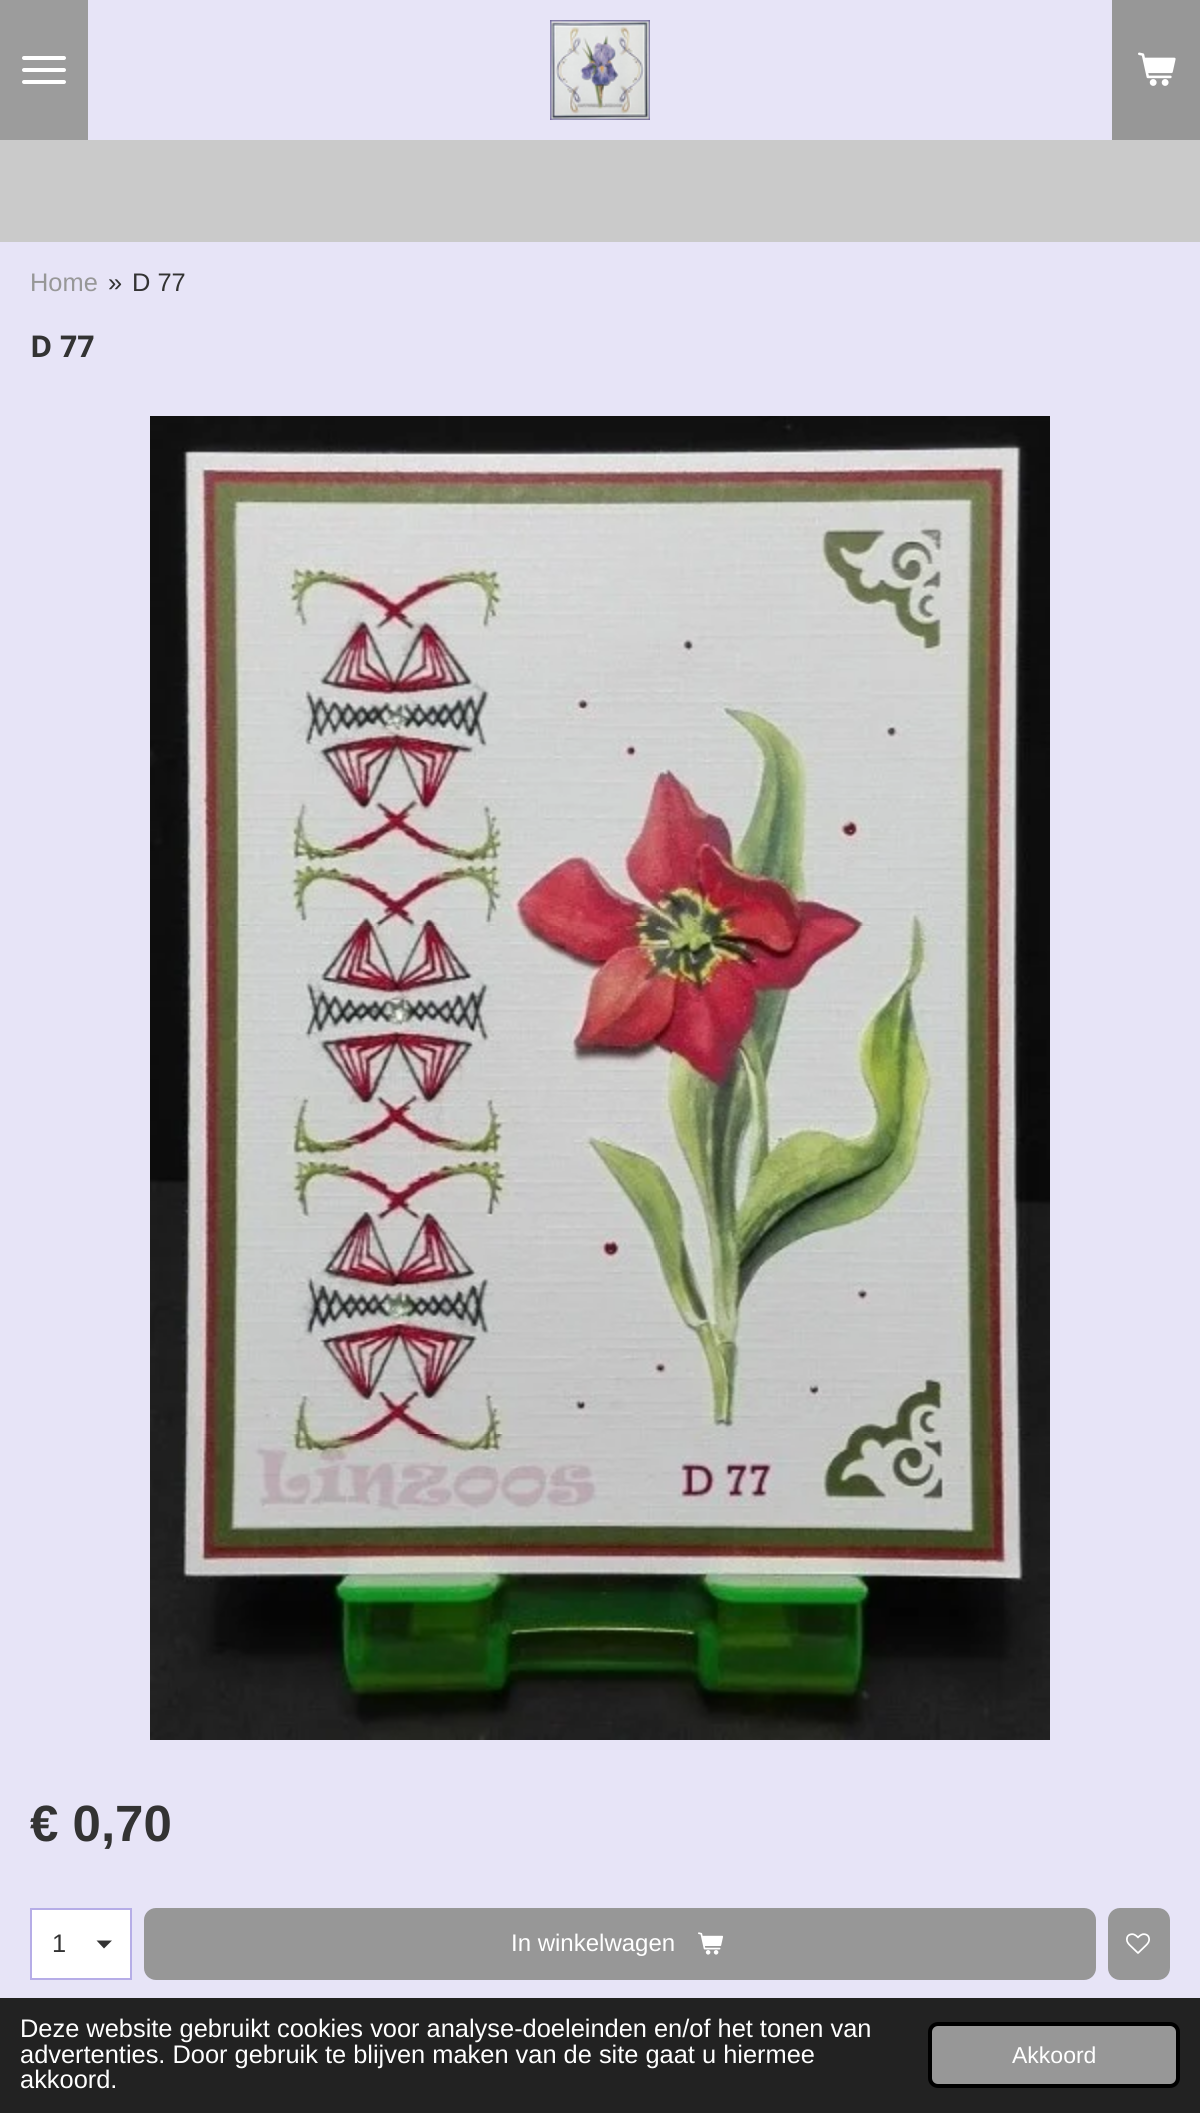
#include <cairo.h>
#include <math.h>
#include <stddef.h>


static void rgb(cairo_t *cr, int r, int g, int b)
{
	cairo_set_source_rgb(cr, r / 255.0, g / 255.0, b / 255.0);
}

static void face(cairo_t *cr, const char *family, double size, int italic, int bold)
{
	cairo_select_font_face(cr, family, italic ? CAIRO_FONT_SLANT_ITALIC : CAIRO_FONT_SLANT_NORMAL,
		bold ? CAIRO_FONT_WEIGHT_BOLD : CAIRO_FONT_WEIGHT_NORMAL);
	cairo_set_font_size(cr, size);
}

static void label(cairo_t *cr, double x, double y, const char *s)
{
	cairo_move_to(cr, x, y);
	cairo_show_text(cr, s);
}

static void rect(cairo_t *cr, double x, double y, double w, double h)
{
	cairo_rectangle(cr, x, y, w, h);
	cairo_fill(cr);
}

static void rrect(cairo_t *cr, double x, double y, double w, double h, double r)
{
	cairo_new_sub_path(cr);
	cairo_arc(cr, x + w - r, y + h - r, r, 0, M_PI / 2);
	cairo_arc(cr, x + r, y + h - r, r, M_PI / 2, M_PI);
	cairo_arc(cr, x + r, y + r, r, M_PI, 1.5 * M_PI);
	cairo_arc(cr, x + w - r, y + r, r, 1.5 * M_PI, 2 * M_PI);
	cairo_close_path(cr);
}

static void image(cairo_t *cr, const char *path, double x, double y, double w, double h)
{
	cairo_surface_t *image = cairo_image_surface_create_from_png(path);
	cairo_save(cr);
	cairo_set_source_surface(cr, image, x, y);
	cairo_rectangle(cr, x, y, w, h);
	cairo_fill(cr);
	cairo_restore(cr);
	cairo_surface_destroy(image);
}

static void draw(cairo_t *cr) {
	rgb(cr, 202, 202, 202);
	cairo_paint(cr);
	rgb(cr, 156, 156, 156);
	rect(cr, 0, 0, 88, 140);
	rgb(cr, 255, 255, 255);
	rrect(cr, 22, 68, 44, 4, 2);
	cairo_fill(cr);
	rrect(cr, 22, 56, 44, 4, 2);
	cairo_fill(cr);
	rrect(cr, 22, 80, 44, 4, 2);
	cairo_fill(cr);
	rgb(cr, 231, 228, 247);
	rect(cr, 88, 0, 1024, 140);
	image(cr, "image0.png", 550, 20, 100, 100);
	rgb(cr, 151, 151, 151);
	rect(cr, 1112, 0, 88, 140);
	image(cr, "image1.png", 1138, 52, 38, 34);
	rgb(cr, 231, 228, 247);
	rect(cr, 0, 242, 1200, 1756);
	face(cr, "Liberation Sans", 25.4, 0, 0);
	rgb(cr, 151, 151, 151);
	label(cr, 30, 291, "Home");
	rgb(cr, 51, 51, 51);
	label(cr, 108, 291, "»");
	label(cr, 132, 291, "D 77");
	face(cr, "Open Sans", 30, 0, 1);
	label(cr, 30, 357, "D 77");
	image(cr, "image2.png", 150, 416, 900, 1324);
	face(cr, "Liberation Sans", 51, 0, 1);
	label(cr, 30, 1841, "€ 0,70");
	rgb(cr, 255, 255, 255);
	rect(cr, 32, 1910, 98, 68);
	rgb(cr, 51, 51, 51);
	cairo_new_path(cr);
	cairo_move_to(cr, 104, 1948.5);
	cairo_line_to(cr, 96.5, 1940.5);
	cairo_line_to(cr, 112, 1940.5);
	cairo_close_path(cr);
	cairo_fill(cr);
	cairo_rectangle(cr, 31, 1909, 100, 70);
	rgb(cr, 182, 173, 231);
	cairo_stroke(cr);
	face(cr, "Liberation Sans", 25.4, 0, 0);
	rgb(cr, 51, 51, 51);
	label(cr, 52, 1952, "1");
	rgb(cr, 151, 151, 151);
	rrect(cr, 144, 1908, 952, 72, 12);
	cairo_fill(cr);
	face(cr, "Liberation Sans", 24, 0, 0);
	rgb(cr, 255, 255, 255);
	label(cr, 511, 1951, "In winkelwagen");
	image(cr, "image3.png", 698, 1932, 25, 23);
	rgb(cr, 151, 151, 151);
	rrect(cr, 1108, 1908, 62, 72, 12);
	cairo_fill(cr);
	image(cr, "image4.png", 1126, 1933, 24, 21);
	rgb(cr, 34, 34, 34);
	rect(cr, 0, 1998, 1200, 115);
	face(cr, "Liberation Sans", 25.4, 0, 0);
	rgb(cr, 255, 255, 255);
	label(cr, 20, 2037, "Deze website gebruikt cookies voor analyse-doeleinden en/of het tonen van");
	label(cr, 20, 2063, "advertenties. Door gebruik te blijven maken van de site gaat u hiermee");
	label(cr, 20, 2088, "akkoord.");
	rgb(cr, 151, 151, 151);
	rrect(cr, 930, 2024, 248, 62, 8);
	cairo_fill_preserve(cr);
	rgb(cr, 0, 0, 0);
	cairo_set_line_width(cr, 4);
	cairo_stroke(cr);
	face(cr, "Liberation Sans", 23, 0, 0);
	rgb(cr, 255, 255, 255);
	label(cr, 1012, 2063, "Akkoord");
}

int main(void) {
	cairo_surface_t *surface = cairo_image_surface_create(CAIRO_FORMAT_RGB24, 1200, 2113);
	cairo_t *cr = cairo_create(surface);
	cairo_font_options_t *options = cairo_font_options_create();
	cairo_font_options_set_hint_metrics(options, CAIRO_HINT_METRICS_OFF);
	cairo_font_options_set_hint_style(options, CAIRO_HINT_STYLE_NONE);
	cairo_set_font_options(cr, options);
	cairo_set_miter_limit(cr, 4);
	draw(cr);
	cairo_surface_write_to_png(surface, "render.png");
	cairo_font_options_destroy(options);
	cairo_destroy(cr);
	cairo_surface_destroy(surface);
	return 0;
}
